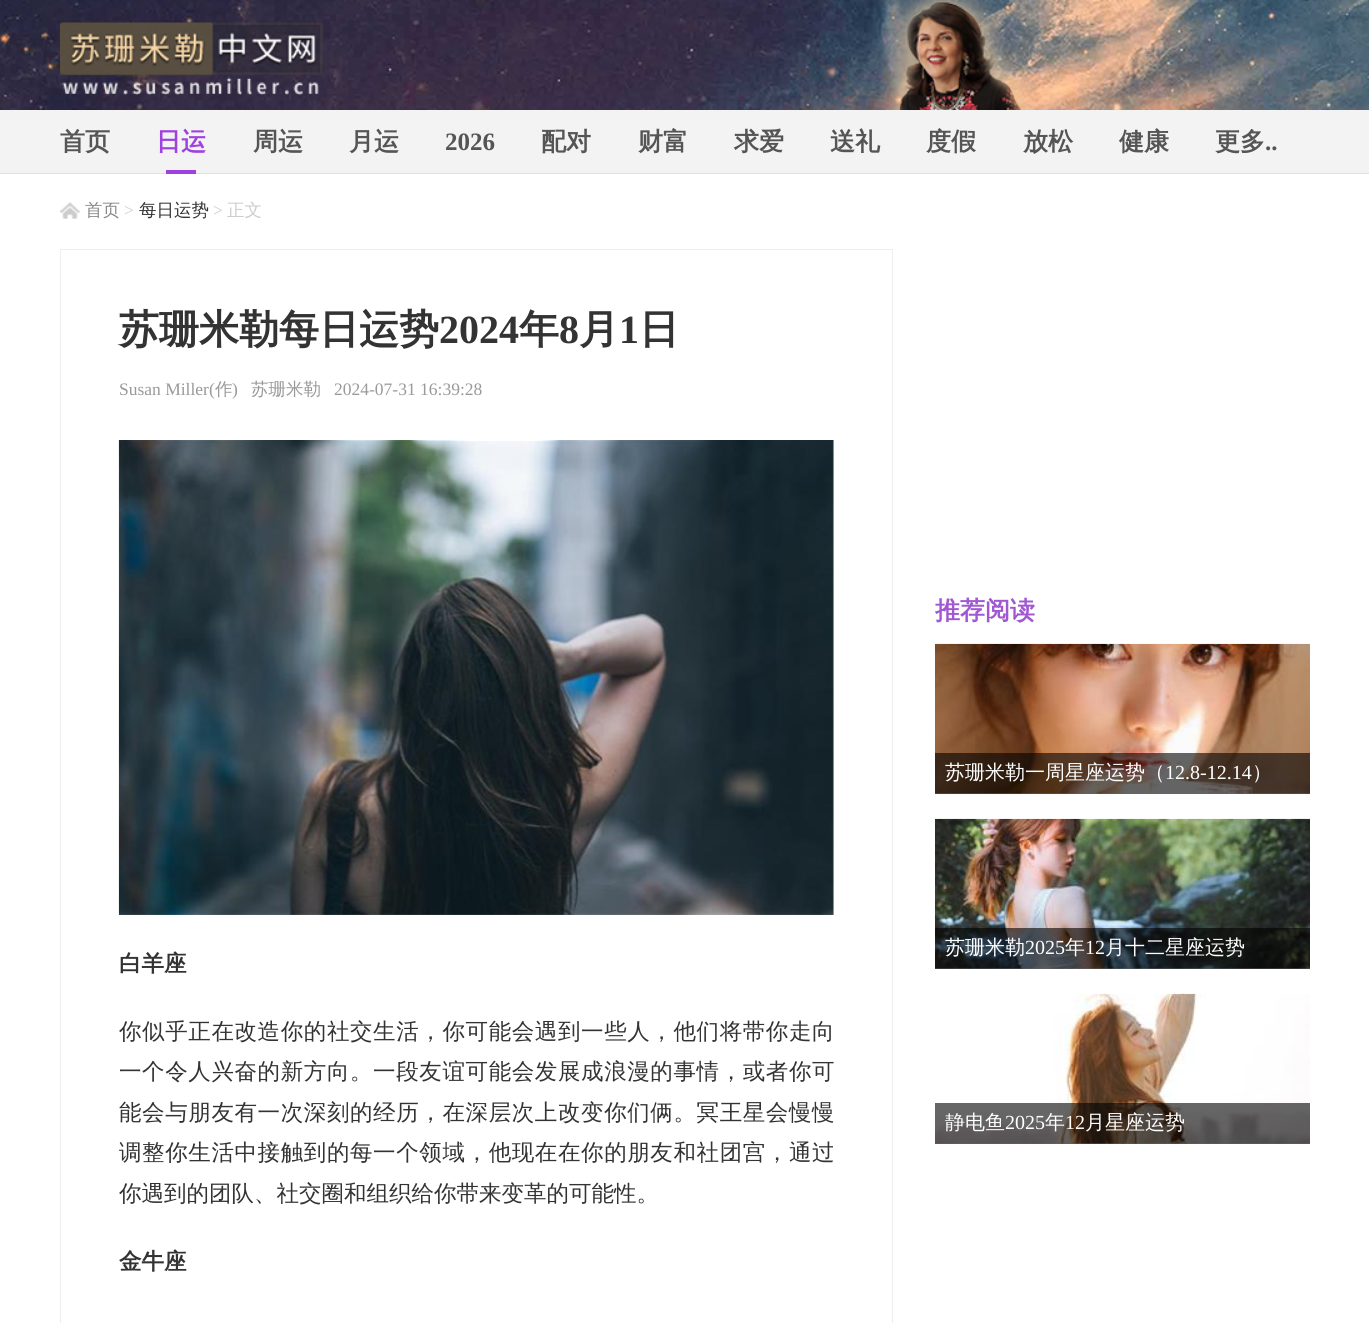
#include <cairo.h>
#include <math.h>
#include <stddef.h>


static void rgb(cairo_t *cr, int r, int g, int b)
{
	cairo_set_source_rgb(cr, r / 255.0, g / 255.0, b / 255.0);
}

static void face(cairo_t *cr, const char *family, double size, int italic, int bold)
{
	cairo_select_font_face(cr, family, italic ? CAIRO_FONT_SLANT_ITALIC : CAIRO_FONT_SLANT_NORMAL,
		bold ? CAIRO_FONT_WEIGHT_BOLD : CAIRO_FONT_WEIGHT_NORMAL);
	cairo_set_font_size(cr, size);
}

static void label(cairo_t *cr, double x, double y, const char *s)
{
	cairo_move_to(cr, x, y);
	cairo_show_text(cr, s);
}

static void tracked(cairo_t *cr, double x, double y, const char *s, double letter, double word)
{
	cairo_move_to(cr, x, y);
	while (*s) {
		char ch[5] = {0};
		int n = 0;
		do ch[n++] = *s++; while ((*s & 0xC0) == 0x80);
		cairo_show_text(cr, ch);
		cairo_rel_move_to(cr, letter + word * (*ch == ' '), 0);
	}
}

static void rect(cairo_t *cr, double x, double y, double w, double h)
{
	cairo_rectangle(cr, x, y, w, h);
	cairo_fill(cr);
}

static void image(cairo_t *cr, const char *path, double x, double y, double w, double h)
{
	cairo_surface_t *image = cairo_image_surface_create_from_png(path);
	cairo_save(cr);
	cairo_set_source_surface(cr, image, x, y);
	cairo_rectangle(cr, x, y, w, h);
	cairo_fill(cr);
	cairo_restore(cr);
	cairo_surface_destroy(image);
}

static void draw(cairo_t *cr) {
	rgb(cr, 255, 255, 255);
	cairo_paint(cr);
	image(cr, "image0.png", 0, 0, 1369, 110);
	image(cr, "image1.png", 60, 22, 263, 73);
	rgb(cr, 243, 243, 243);
	rect(cr, 0, 110, 1369, 63);
	rgb(cr, 224, 224, 224);
	rect(cr, 0, 173, 1369, 1);
	face(cr, "WenQuanYi Zen Hei", 25, 0, 1);
	rgb(cr, 85, 85, 85);
	label(cr, 60, 150, "首页");
	rgb(cr, 159, 64, 224);
	label(cr, 156, 150, "日运");
	rect(cr, 166, 170, 30, 4);
	rgb(cr, 85, 85, 85);
	label(cr, 253, 150, "周运");
	label(cr, 349, 150, "月运");
	face(cr, "Liberation Serif", 25, 0, 1);
	label(cr, 445, 150, "2026");
	face(cr, "WenQuanYi Zen Hei", 25, 0, 1);
	label(cr, 541, 150, "配对");
	label(cr, 638, 150, "财富");
	label(cr, 734, 150, "求爱");
	label(cr, 830, 150, "送礼");
	label(cr, 926, 150, "度假");
	label(cr, 1023, 150, "放松");
	label(cr, 1119, 150, "健康");
	label(cr, 1215, 150, "更多");
	face(cr, "Liberation Serif", 25, 0, 1);
	label(cr, 1265, 150, "..");
	image(cr, "image2.png", 60, 202, 21, 17);
	face(cr, "WenQuanYi Zen Hei Medium", 17.5, 0, 0);
	rgb(cr, 136, 136, 136);
	label(cr, 85, 216, "首页");
	face(cr, "Liberation Serif", 17.5, 0, 0);
	rgb(cr, 204, 204, 204);
	label(cr, 124, 216, ">");
	face(cr, "WenQuanYi Zen Hei Medium", 17.5, 0, 0);
	rgb(cr, 51, 51, 51);
	label(cr, 139, 216, "每日运势");
	face(cr, "Liberation Serif", 17.5, 0, 0);
	rgb(cr, 204, 204, 204);
	label(cr, 213, 216, ">");
	face(cr, "WenQuanYi Zen Hei Medium", 17.5, 0, 0);
	label(cr, 227, 216, "正文");
	cairo_rectangle(cr, 60.5, 249.5, 832, 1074);
	rgb(cr, 238, 238, 238);
	cairo_set_line_width(cr, 1);
	cairo_stroke(cr);
	face(cr, "WenQuanYi Zen Hei", 40, 0, 1);
	rgb(cr, 51, 51, 51);
	label(cr, 119, 343, "苏珊米勒每日运势");
	face(cr, "Liberation Serif", 40, 0, 1);
	label(cr, 439, 343, "2024");
	face(cr, "WenQuanYi Zen Hei", 40, 0, 1);
	label(cr, 519, 343, "年");
	face(cr, "Liberation Serif", 40, 0, 1);
	label(cr, 559, 343, "8");
	face(cr, "WenQuanYi Zen Hei", 40, 0, 1);
	label(cr, 579, 343, "月");
	face(cr, "Liberation Serif", 40, 0, 1);
	label(cr, 619, 343, "1");
	face(cr, "WenQuanYi Zen Hei", 40, 0, 1);
	label(cr, 639, 343, "日");
	face(cr, "Liberation Serif", 17.5, 0, 0);
	rgb(cr, 153, 153, 153);
	label(cr, 119, 395, "Susan Miller(");
	face(cr, "WenQuanYi Zen Hei Medium", 17.5, 0, 0);
	label(cr, 215, 395, "作");
	face(cr, "Liberation Serif", 17.5, 0, 0);
	label(cr, 232, 395, ")");
	face(cr, "WenQuanYi Zen Hei Medium", 17.5, 0, 0);
	label(cr, 251, 395, "苏珊米勒");
	face(cr, "Liberation Serif", 17.5, 0, 0);
	label(cr, 334, 395, "2024-07-31 16:39:28");
	image(cr, "image3.png", 118, 440, 716, 475);
	face(cr, "WenQuanYi Zen Hei", 22.5, 0, 1);
	rgb(cr, 51, 51, 51);
	label(cr, 119, 971, "白羊座");
	face(cr, "WenQuanYi Zen Hei Medium", 22.5, 0, 0);
	tracked(cr, 119, 1039, "你似乎正在改造你的社交生活，你可能会遇到一些人，他们将带你走向", 0.6, 0);
	tracked(cr, 119, 1079, "一个令人兴奋的新方向。一段友谊可能会发展成浪漫的事情，或者你可", 0.6, 0);
	tracked(cr, 119, 1120, "能会与朋友有一次深刻的经历，在深层次上改变你们俩。冥王星会慢慢", 0.6, 0);
	tracked(cr, 119, 1160, "调整你生活中接触到的每一个领域，他现在在你的朋友和社团宫，通过", 0.6, 0);
	label(cr, 119, 1201, "你遇到的团队、社交圈和组织给你带来变革的可能性。");
	face(cr, "WenQuanYi Zen Hei", 22.5, 0, 1);
	label(cr, 119, 1269, "金牛座");
	face(cr, "WenQuanYi Zen Hei", 25, 0, 1);
	rgb(cr, 160, 88, 210);
	label(cr, 935, 619, "推荐阅读");
	image(cr, "image4.png", 935, 643, 375, 151);
	cairo_set_source_rgba(cr, 0, 0, 0, 0.6);
	rect(cr, 935, 753, 375, 41);
	face(cr, "WenQuanYi Zen Hei Medium", 20, 0, 0);
	rgb(cr, 255, 255, 255);
	label(cr, 945, 779, "苏珊米勒一周星座运势（");
	face(cr, "Liberation Serif", 20, 0, 0);
	label(cr, 1165, 779, "12.8-12.14");
	face(cr, "WenQuanYi Zen Hei Medium", 20, 0, 0);
	label(cr, 1252, 779, "）");
	image(cr, "image5.png", 935, 818, 375, 151);
	cairo_set_source_rgba(cr, 0, 0, 0, 0.6);
	rect(cr, 935, 928, 375, 41);
	rgb(cr, 255, 255, 255);
	label(cr, 945, 954, "苏珊米勒");
	face(cr, "Liberation Serif", 20, 0, 0);
	label(cr, 1025, 954, "2025");
	face(cr, "WenQuanYi Zen Hei Medium", 20, 0, 0);
	label(cr, 1065, 954, "年");
	face(cr, "Liberation Serif", 20, 0, 0);
	label(cr, 1085, 954, "12");
	face(cr, "WenQuanYi Zen Hei Medium", 20, 0, 0);
	label(cr, 1105, 954, "月十二星座运势");
	image(cr, "image6.png", 935, 993, 375, 151);
	cairo_set_source_rgba(cr, 0, 0, 0, 0.6);
	rect(cr, 935, 1103, 375, 41);
	rgb(cr, 255, 255, 255);
	label(cr, 945, 1129, "静电鱼");
	face(cr, "Liberation Serif", 20, 0, 0);
	label(cr, 1005, 1129, "2025");
	face(cr, "WenQuanYi Zen Hei Medium", 20, 0, 0);
	label(cr, 1045, 1129, "年");
	face(cr, "Liberation Serif", 20, 0, 0);
	label(cr, 1065, 1129, "12");
	face(cr, "WenQuanYi Zen Hei Medium", 20, 0, 0);
	label(cr, 1085, 1129, "月星座运势");
}

int main(void) {
	cairo_surface_t *surface = cairo_image_surface_create(CAIRO_FORMAT_RGB24, 1369, 1323);
	cairo_t *cr = cairo_create(surface);
	cairo_font_options_t *options = cairo_font_options_create();
	cairo_font_options_set_hint_metrics(options, CAIRO_HINT_METRICS_OFF);
	cairo_font_options_set_hint_style(options, CAIRO_HINT_STYLE_NONE);
	cairo_set_font_options(cr, options);
	cairo_set_miter_limit(cr, 4);
	draw(cr);
	cairo_surface_write_to_png(surface, "render.png");
	cairo_font_options_destroy(options);
	cairo_destroy(cr);
	cairo_surface_destroy(surface);
	return 0;
}
